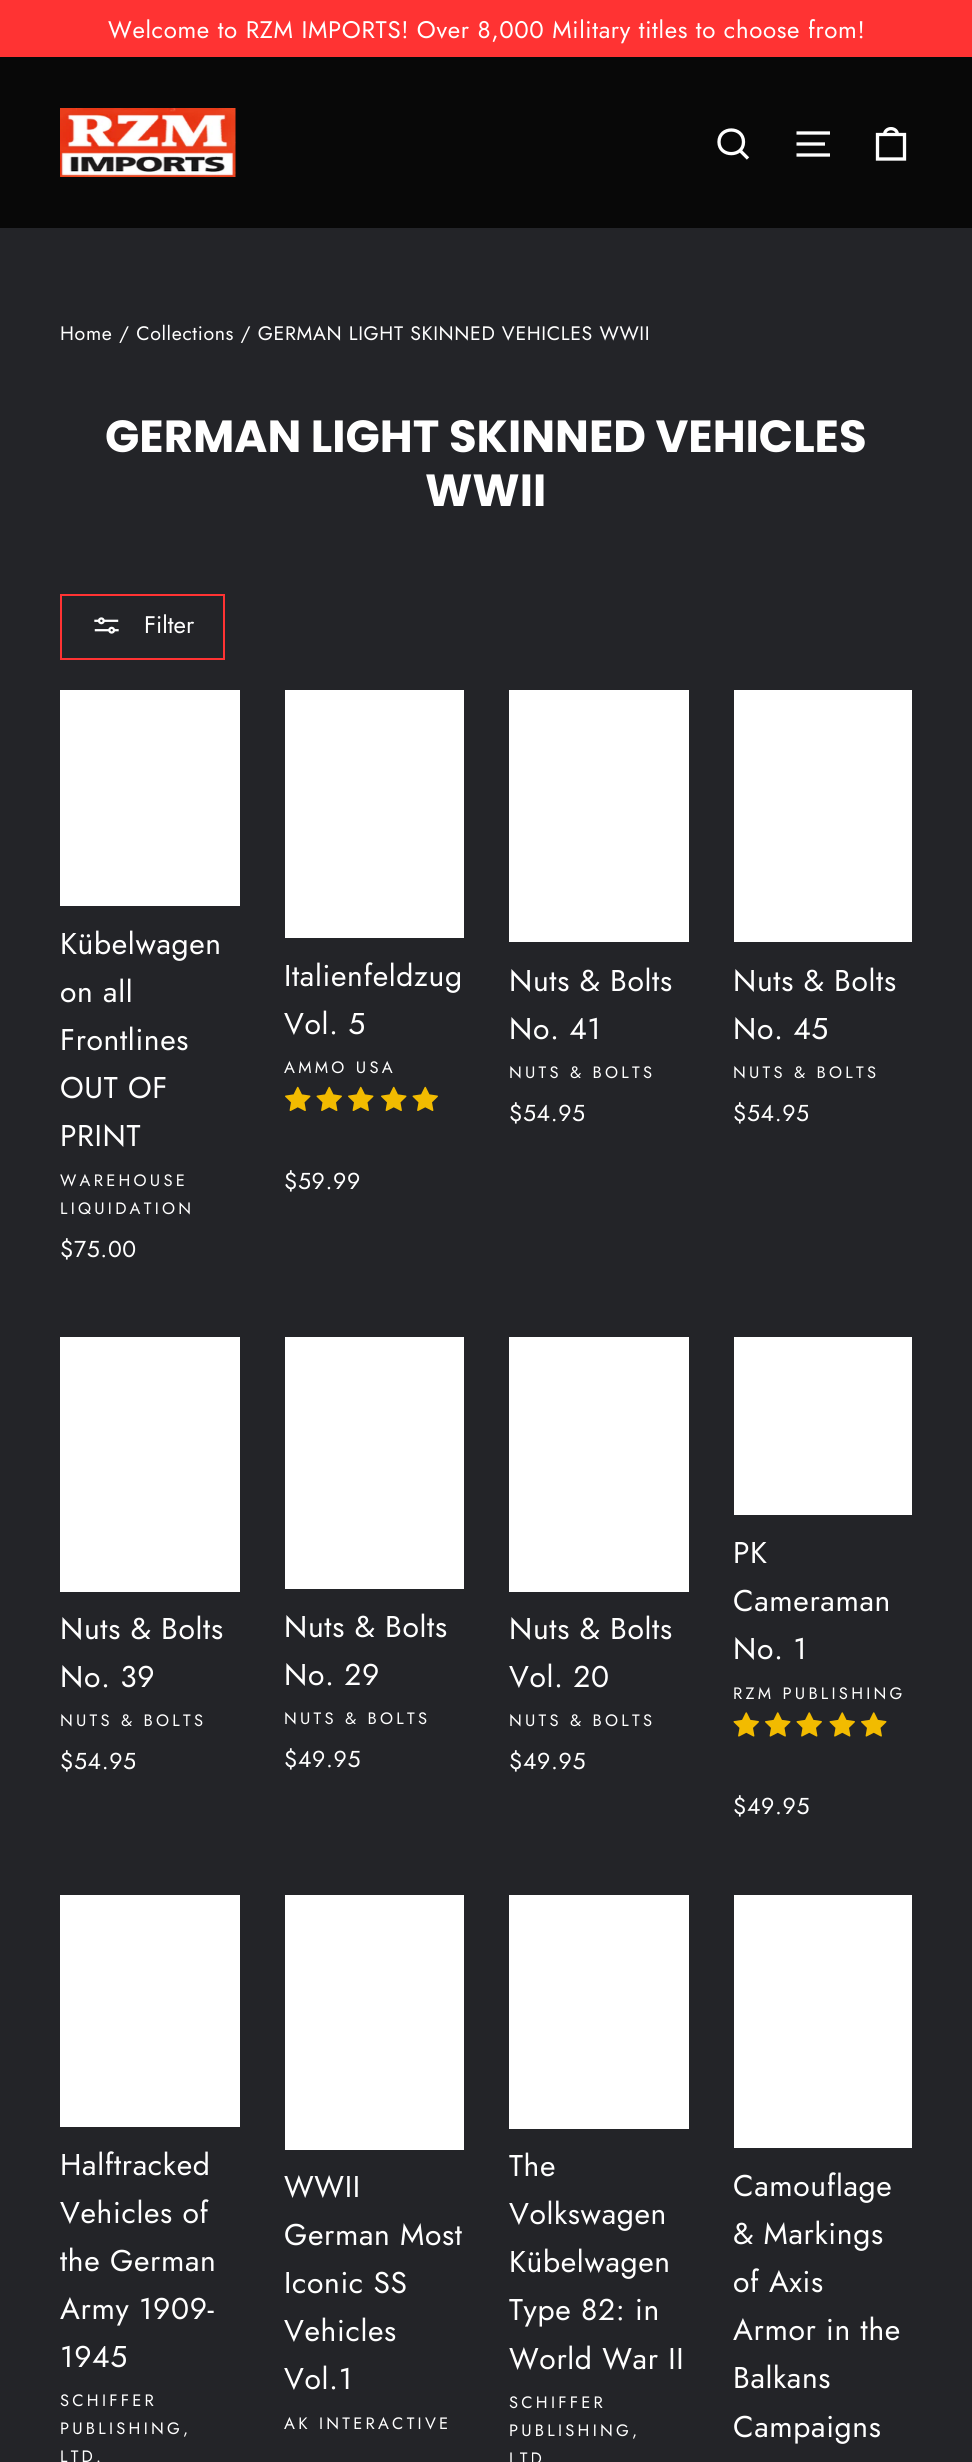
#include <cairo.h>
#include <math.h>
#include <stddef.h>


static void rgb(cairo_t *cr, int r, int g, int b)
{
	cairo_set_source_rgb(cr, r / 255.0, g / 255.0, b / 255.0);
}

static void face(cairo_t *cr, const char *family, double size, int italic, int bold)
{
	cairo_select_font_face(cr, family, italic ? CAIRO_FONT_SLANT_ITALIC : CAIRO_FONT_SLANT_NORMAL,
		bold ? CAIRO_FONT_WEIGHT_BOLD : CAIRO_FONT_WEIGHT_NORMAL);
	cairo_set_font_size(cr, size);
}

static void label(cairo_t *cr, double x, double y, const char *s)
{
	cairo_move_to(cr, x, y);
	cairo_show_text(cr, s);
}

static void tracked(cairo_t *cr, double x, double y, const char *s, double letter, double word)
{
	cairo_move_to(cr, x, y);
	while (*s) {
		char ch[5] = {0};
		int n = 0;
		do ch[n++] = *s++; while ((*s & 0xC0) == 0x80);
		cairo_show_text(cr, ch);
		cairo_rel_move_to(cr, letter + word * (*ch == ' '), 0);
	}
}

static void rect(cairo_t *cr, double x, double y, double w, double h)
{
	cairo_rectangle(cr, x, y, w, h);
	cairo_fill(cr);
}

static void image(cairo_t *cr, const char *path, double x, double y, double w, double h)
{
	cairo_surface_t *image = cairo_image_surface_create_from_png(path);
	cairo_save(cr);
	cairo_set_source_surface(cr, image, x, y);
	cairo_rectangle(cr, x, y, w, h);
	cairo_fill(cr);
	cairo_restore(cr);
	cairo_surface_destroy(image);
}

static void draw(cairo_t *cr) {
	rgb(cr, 35, 36, 40);
	cairo_paint(cr);
	rgb(cr, 255, 51, 51);
	rect(cr, 0, 0, 972, 57);
	face(cr, "Jost", 24, 0, 0);
	rgb(cr, 255, 255, 255);
	tracked(cr, 108, 38, "Welcome to RZM IMPORTS! Over 8,000 Military titles to choose from!", 0.65, 0);
	rgb(cr, 8, 8, 8);
	rect(cr, 0, 57, 972, 171);
	image(cr, "image0.png", 60, 108, 176, 69);
	cairo_new_path(cr);
	cairo_move_to(cr, 743.5, 142);
	cairo_curve_to(cr, 743.5, 157.5, 719, 157.5, 719, 142);
	cairo_curve_to(cr, 719, 126, 743.5, 126, 743.5, 142);
	cairo_close_path(cr);
	cairo_move_to(cr, 748, 158.5);
	cairo_line_to(cr, 740, 150.5);
	rgb(cr, 255, 255, 255);
	cairo_set_line_width(cr, 3.3);
	cairo_stroke(cr);
	cairo_new_path(cr);
	cairo_move_to(cr, 796.5, 133);
	cairo_line_to(cr, 830, 133);
	cairo_move_to(cr, 796.5, 144);
	cairo_line_to(cr, 825, 144);
	cairo_move_to(cr, 796.5, 155);
	cairo_line_to(cr, 830, 155);
	cairo_stroke(cr);
	cairo_new_path(cr);
	cairo_move_to(cr, 877.5, 134.5);
	cairo_line_to(cr, 904.5, 134.5);
	cairo_line_to(cr, 904.5, 159);
	cairo_line_to(cr, 877.5, 159);
	cairo_close_path(cr);
	cairo_move_to(cr, 884.5, 135);
	cairo_curve_to(cr, 884.5, 126.5, 897.5, 126.5, 897.5, 135);
	cairo_stroke(cr);
	face(cr, "Jost", 19.5, 0, 0);
	tracked(cr, 60, 340, "Home / Collections / GERMAN LIGHT SKINNED VEHICLES WWII", 0.65, 0);
	face(cr, "Poppins", 45, 0, 1);
	label(cr, 105, 452, "GERMAN LIGHT SKINNED VEHICLES");
	label(cr, 425, 506, "WWII");
	cairo_rectangle(cr, 61, 595, 163, 64);
	rgb(cr, 255, 51, 51);
	cairo_set_line_width(cr, 2);
	cairo_stroke(cr);
	image(cr, "image1.png", 94, 617, 25, 17);
	face(cr, "Jost", 24, 0, 0);
	rgb(cr, 255, 255, 255);
	label(cr, 144, 633, "Filter");
	rect(cr, 60, 690, 180, 216);
	face(cr, "Jost", 30, 0, 0);
	tracked(cr, 60, 954, "Kübelwagen", 0.65, 0);
	tracked(cr, 60, 1002, "on all", 0.65, 0);
	tracked(cr, 60, 1050, "Frontlines", 0.65, 0);
	tracked(cr, 60, 1098, "OUT OF", 0.65, 0);
	tracked(cr, 60, 1146, "PRINT", 0.65, 0);
	face(cr, "Jost", 16.5, 0, 0);
	tracked(cr, 60, 1186, "WAREHOUSE", 3.25, 0);
	tracked(cr, 60, 1214, "LIQUIDATION", 3.25, 0);
	face(cr, "Jost", 23, 0, 0);
	tracked(cr, 60, 1257, "$75.00", 0.65, 0);
	rect(cr, 285, 690, 179, 248);
	face(cr, "Jost", 30, 0, 0);
	tracked(cr, 284, 986, "Italienfeldzug", 0.65, 0);
	tracked(cr, 284, 1034, "Vol. 5", 0.65, 0);
	face(cr, "Jost", 16.5, 0, 0);
	tracked(cr, 284, 1073, "AMMO USA", 3.25, 0);
	image(cr, "image2.png", 285, 1086, 26, 25);
	image(cr, "image3.png", 316, 1086, 26, 25);
	image(cr, "image2.png", 348, 1086, 26, 25);
	image(cr, "image2.png", 381, 1086, 26, 25);
	image(cr, "image3.png", 412, 1086, 26, 25);
	face(cr, "Jost", 23, 0, 0);
	tracked(cr, 284, 1189, "$59.99", 0.65, 0);
	rect(cr, 509, 690, 180, 252);
	face(cr, "Jost", 30, 0, 0);
	tracked(cr, 509, 991, "Nuts & Bolts", 0.65, 0);
	tracked(cr, 509, 1039, "No. 41", 0.65, 0);
	face(cr, "Jost", 16.5, 0, 0);
	tracked(cr, 509, 1078, "NUTS & BOLTS", 3.25, 0);
	face(cr, "Jost", 23, 0, 0);
	tracked(cr, 509, 1121, "$54.95", 0.65, 0);
	rect(cr, 734, 690, 178, 252);
	face(cr, "Jost", 30, 0, 0);
	tracked(cr, 733, 991, "Nuts & Bolts", 0.65, 0);
	tracked(cr, 733, 1039, "No. 45", 0.65, 0);
	face(cr, "Jost", 16.5, 0, 0);
	tracked(cr, 733, 1078, "NUTS & BOLTS", 3.25, 0);
	face(cr, "Jost", 23, 0, 0);
	tracked(cr, 733, 1121, "$54.95", 0.65, 0);
	rect(cr, 60, 1337, 180, 255);
	face(cr, "Jost", 30, 0, 0);
	tracked(cr, 60, 1639, "Nuts & Bolts", 0.65, 0);
	tracked(cr, 60, 1687, "No. 39", 0.65, 0);
	face(cr, "Jost", 16.5, 0, 0);
	tracked(cr, 60, 1726, "NUTS & BOLTS", 3.25, 0);
	face(cr, "Jost", 23, 0, 0);
	tracked(cr, 60, 1769, "$54.95", 0.65, 0);
	rect(cr, 285, 1337, 179, 252);
	face(cr, "Jost", 30, 0, 0);
	tracked(cr, 284, 1637, "Nuts & Bolts", 0.65, 0);
	tracked(cr, 284, 1685, "No. 29", 0.65, 0);
	face(cr, "Jost", 16.5, 0, 0);
	tracked(cr, 284, 1724, "NUTS & BOLTS", 3.25, 0);
	face(cr, "Jost", 23, 0, 0);
	tracked(cr, 284, 1767, "$49.95", 0.65, 0);
	rect(cr, 509, 1337, 180, 255);
	face(cr, "Jost", 30, 0, 0);
	tracked(cr, 509, 1639, "Nuts & Bolts", 0.65, 0);
	tracked(cr, 509, 1687, "Vol. 20", 0.65, 0);
	face(cr, "Jost", 16.5, 0, 0);
	tracked(cr, 509, 1726, "NUTS & BOLTS", 3.25, 0);
	face(cr, "Jost", 23, 0, 0);
	tracked(cr, 509, 1769, "$49.95", 0.65, 0);
	rect(cr, 734, 1337, 178, 178);
	face(cr, "Jost", 30, 0, 0);
	tracked(cr, 733, 1563, "PK", 0.65, 0);
	tracked(cr, 733, 1611, "Cameraman", 0.65, 0);
	tracked(cr, 733, 1659, "No. 1", 0.65, 0);
	face(cr, "Jost", 16.5, 0, 0);
	tracked(cr, 733, 1699, "RZM PUBLISHING", 3.25, 0);
	image(cr, "image4.png", 733, 1712, 26, 25);
	image(cr, "image5.png", 765, 1712, 26, 25);
	image(cr, "image4.png", 796, 1712, 26, 25);
	image(cr, "image4.png", 829, 1712, 26, 25);
	image(cr, "image5.png", 861, 1712, 26, 25);
	face(cr, "Jost", 23, 0, 0);
	tracked(cr, 733, 1814, "$49.95", 0.65, 0);
	rect(cr, 60, 1895, 180, 232);
	face(cr, "Jost", 30, 0, 0);
	tracked(cr, 60, 2175, "Halftracked", 0.65, 0);
	tracked(cr, 60, 2223, "Vehicles of", 0.65, 0);
	tracked(cr, 60, 2271, "the German", 0.65, 0);
	tracked(cr, 60, 2319, "Army 1909-", 0.65, 0);
	tracked(cr, 60, 2367, "1945", 0.65, 0);
	face(cr, "Jost", 16.5, 0, 0);
	tracked(cr, 60, 2406, "SCHIFFER", 3.25, 0);
	tracked(cr, 60, 2434, "PUBLISHING,", 3.25, 0);
	tracked(cr, 60, 2462, "LTD.", 3.25, 0);
	rect(cr, 285, 1895, 179, 255);
	face(cr, "Jost", 30, 0, 0);
	tracked(cr, 284, 2197, "WWII", 0.65, 0);
	tracked(cr, 284, 2245, "German Most", 0.65, 0);
	tracked(cr, 284, 2293, "Iconic SS", 0.65, 0);
	tracked(cr, 284, 2341, "Vehicles", 0.65, 0);
	tracked(cr, 284, 2389, "Vol.1", 0.65, 0);
	face(cr, "Jost", 16.5, 0, 0);
	tracked(cr, 284, 2429, "AK INTERACTIVE", 3.25, 0);
	rect(cr, 509, 1895, 180, 234);
	face(cr, "Jost", 30, 0, 0);
	tracked(cr, 509, 2176, "The", 0.65, 0);
	tracked(cr, 509, 2224, "Volkswagen", 0.65, 0);
	tracked(cr, 509, 2272, "Kübelwagen", 0.65, 0);
	tracked(cr, 509, 2320, "Type 82: in", 0.65, 0);
	tracked(cr, 509, 2369, "World War II", 0.65, 0);
	face(cr, "Jost", 16.5, 0, 0);
	tracked(cr, 509, 2408, "SCHIFFER", 3.25, 0);
	tracked(cr, 509, 2436, "PUBLISHING,", 3.25, 0);
	tracked(cr, 509, 2464, "LTD", 3.25, 0);
	rect(cr, 734, 1895, 178, 253);
	face(cr, "Jost", 30, 0, 0);
	tracked(cr, 733, 2196, "Camouflage", 0.65, 0);
	tracked(cr, 733, 2244, "& Markings", 0.65, 0);
	tracked(cr, 733, 2292, "of Axis", 0.65, 0);
	tracked(cr, 733, 2340, "Armor in the", 0.65, 0);
	tracked(cr, 733, 2388, "Balkans", 0.65, 0);
	tracked(cr, 733, 2437, "Campaigns", 0.65, 0);
}

int main(void) {
	cairo_surface_t *surface = cairo_image_surface_create(CAIRO_FORMAT_RGB24, 972, 2462);
	cairo_t *cr = cairo_create(surface);
	cairo_font_options_t *options = cairo_font_options_create();
	cairo_font_options_set_hint_metrics(options, CAIRO_HINT_METRICS_OFF);
	cairo_font_options_set_hint_style(options, CAIRO_HINT_STYLE_NONE);
	cairo_set_font_options(cr, options);
	cairo_set_miter_limit(cr, 4);
	draw(cr);
	cairo_surface_write_to_png(surface, "render.png");
	cairo_font_options_destroy(options);
	cairo_destroy(cr);
	cairo_surface_destroy(surface);
	return 0;
}
